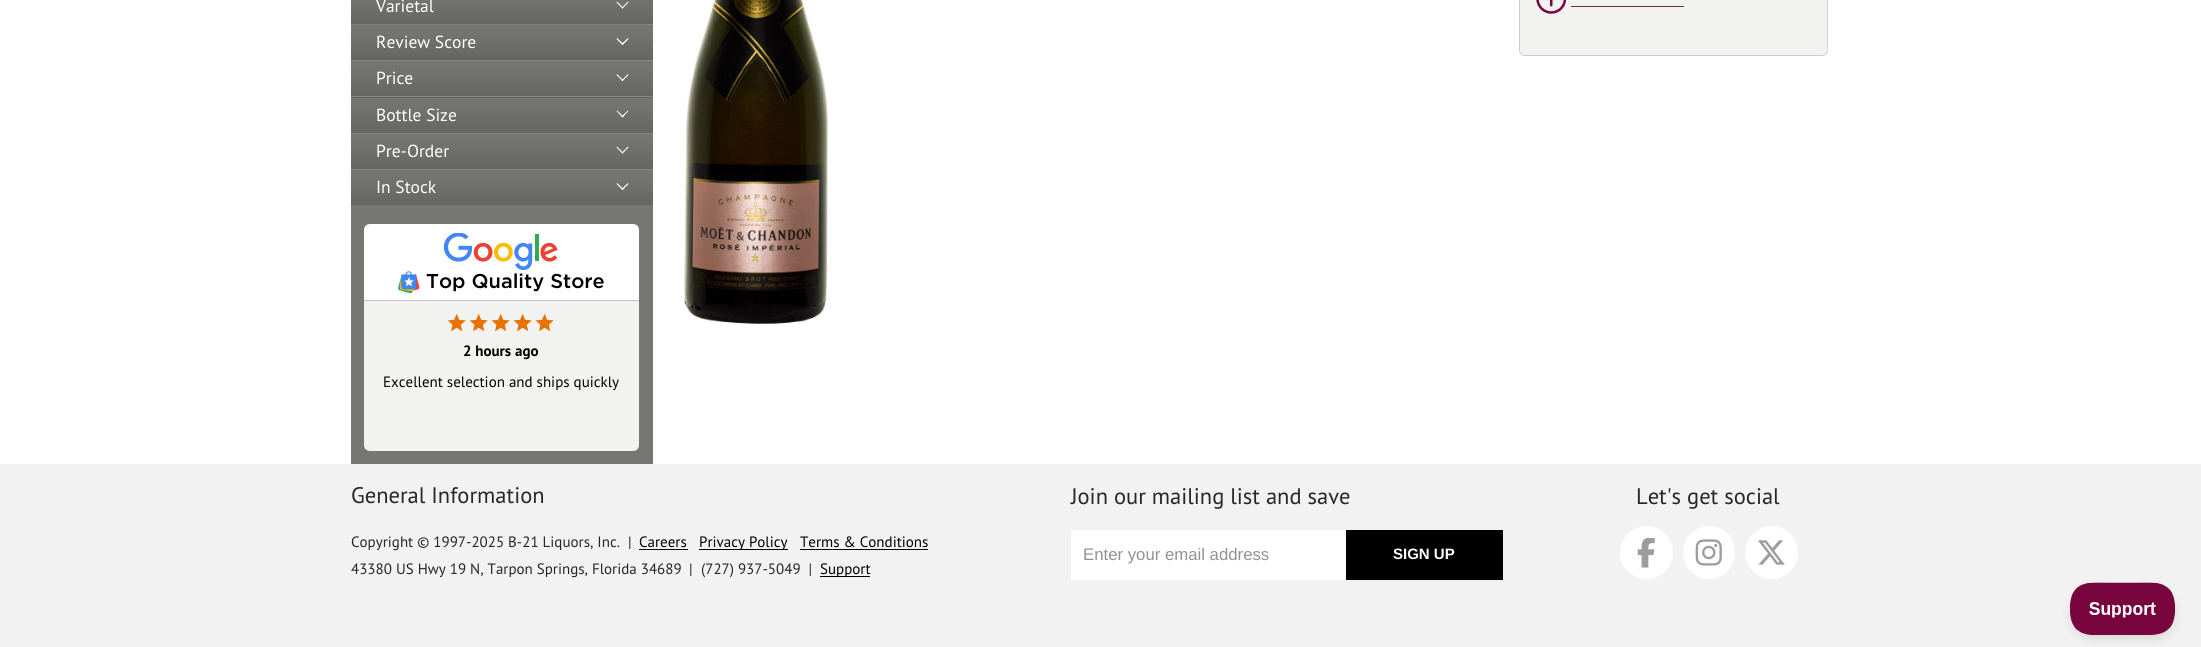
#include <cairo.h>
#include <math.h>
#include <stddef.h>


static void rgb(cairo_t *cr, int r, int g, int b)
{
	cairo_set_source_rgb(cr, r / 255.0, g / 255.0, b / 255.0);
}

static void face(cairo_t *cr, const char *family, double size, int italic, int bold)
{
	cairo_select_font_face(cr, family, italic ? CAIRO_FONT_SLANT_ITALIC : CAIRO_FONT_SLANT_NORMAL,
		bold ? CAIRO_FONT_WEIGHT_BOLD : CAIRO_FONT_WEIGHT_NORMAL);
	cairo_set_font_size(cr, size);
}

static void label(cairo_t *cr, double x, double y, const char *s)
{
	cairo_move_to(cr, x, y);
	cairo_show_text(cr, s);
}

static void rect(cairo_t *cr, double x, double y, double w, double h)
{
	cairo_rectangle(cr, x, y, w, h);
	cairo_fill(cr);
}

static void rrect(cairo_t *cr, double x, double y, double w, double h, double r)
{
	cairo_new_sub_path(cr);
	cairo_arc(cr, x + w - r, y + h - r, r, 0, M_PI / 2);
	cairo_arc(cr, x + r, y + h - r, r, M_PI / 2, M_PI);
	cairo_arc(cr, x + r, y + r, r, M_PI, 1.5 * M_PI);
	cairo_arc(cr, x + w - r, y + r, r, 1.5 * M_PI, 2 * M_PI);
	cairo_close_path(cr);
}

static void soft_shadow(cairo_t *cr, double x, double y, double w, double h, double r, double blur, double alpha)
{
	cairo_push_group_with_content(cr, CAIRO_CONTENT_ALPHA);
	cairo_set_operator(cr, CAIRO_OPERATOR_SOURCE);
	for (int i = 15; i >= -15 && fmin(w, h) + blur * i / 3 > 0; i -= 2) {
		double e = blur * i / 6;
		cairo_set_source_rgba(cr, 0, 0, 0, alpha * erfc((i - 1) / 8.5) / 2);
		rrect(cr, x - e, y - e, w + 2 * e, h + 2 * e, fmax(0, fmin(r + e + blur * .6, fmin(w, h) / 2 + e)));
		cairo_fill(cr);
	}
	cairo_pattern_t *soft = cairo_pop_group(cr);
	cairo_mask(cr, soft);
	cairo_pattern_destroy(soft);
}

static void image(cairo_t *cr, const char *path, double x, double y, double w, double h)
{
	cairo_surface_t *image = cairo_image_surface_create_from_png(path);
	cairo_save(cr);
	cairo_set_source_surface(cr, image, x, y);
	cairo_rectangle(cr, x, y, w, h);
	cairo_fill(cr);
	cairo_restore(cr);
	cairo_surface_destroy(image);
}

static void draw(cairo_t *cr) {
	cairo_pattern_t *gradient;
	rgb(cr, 255, 255, 255);
	cairo_paint(cr);
	rgb(cr, 118, 118, 114);
	rect(cr, 351, 205, 302, 259);
	gradient = cairo_pattern_create_linear(502, -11, 502, 24);
	cairo_pattern_add_color_stop_rgba(gradient, 0, 0.463, 0.463, 0.447, 1);
	cairo_pattern_add_color_stop_rgba(gradient, 0.33, 0.447, 0.447, 0.431, 1);
	cairo_pattern_add_color_stop_rgba(gradient, 1, 0.396, 0.396, 0.384, 1);
	cairo_set_source(cr, gradient);
	cairo_pattern_destroy(gradient);
	rect(cr, 351, 0, 302, 24);
	face(cr, "PT Sans", 17.5, 0, 0);
	rgb(cr, 255, 255, 255);
	label(cr, 376, 12, "Varietal");
	cairo_new_path(cr);
	cairo_move_to(cr, 628, 1.5);
	cairo_line_to(cr, 628.5, 2.5);
	cairo_line_to(cr, 622.5, 8.5);
	cairo_line_to(cr, 621.5, 8);
	cairo_close_path(cr);
	cairo_fill(cr);
	cairo_new_path(cr);
	cairo_move_to(cr, 617, 1.5);
	cairo_line_to(cr, 623.5, 8);
	cairo_line_to(cr, 622.5, 8.5);
	cairo_line_to(cr, 616.5, 2.5);
	cairo_close_path(cr);
	cairo_fill(cr);
	gradient = cairo_pattern_create_linear(502, 25, 502, 60);
	cairo_pattern_add_color_stop_rgba(gradient, 0, 0.463, 0.463, 0.447, 1);
	cairo_pattern_add_color_stop_rgba(gradient, 0.33, 0.447, 0.447, 0.431, 1);
	cairo_pattern_add_color_stop_rgba(gradient, 1, 0.396, 0.396, 0.384, 1);
	cairo_set_source(cr, gradient);
	cairo_pattern_destroy(gradient);
	rect(cr, 351, 25, 302, 35);
	rgb(cr, 132, 132, 128);
	rect(cr, 351, 24, 302, 1);
	rgb(cr, 255, 255, 255);
	label(cr, 376, 48, "Review Score");
	cairo_new_path(cr);
	cairo_move_to(cr, 628, 38);
	cairo_line_to(cr, 628.5, 39);
	cairo_line_to(cr, 622.5, 45);
	cairo_line_to(cr, 621.5, 44);
	cairo_close_path(cr);
	cairo_fill(cr);
	cairo_new_path(cr);
	cairo_move_to(cr, 617, 38);
	cairo_line_to(cr, 623.5, 44);
	cairo_line_to(cr, 622.5, 45);
	cairo_line_to(cr, 616.5, 39);
	cairo_close_path(cr);
	cairo_fill(cr);
	gradient = cairo_pattern_create_linear(502, 61, 502, 96);
	cairo_pattern_add_color_stop_rgba(gradient, 0, 0.463, 0.463, 0.447, 1);
	cairo_pattern_add_color_stop_rgba(gradient, 0.33, 0.447, 0.447, 0.431, 1);
	cairo_pattern_add_color_stop_rgba(gradient, 1, 0.396, 0.396, 0.384, 1);
	cairo_set_source(cr, gradient);
	cairo_pattern_destroy(gradient);
	rect(cr, 351, 61, 302, 35);
	rgb(cr, 132, 132, 128);
	rect(cr, 351, 60, 302, 1);
	rgb(cr, 255, 255, 255);
	label(cr, 376, 84, "Price");
	cairo_new_path(cr);
	cairo_move_to(cr, 628, 74);
	cairo_line_to(cr, 628.5, 75);
	cairo_line_to(cr, 622.5, 81);
	cairo_line_to(cr, 621.5, 80.5);
	cairo_close_path(cr);
	cairo_fill(cr);
	cairo_new_path(cr);
	cairo_move_to(cr, 617, 74);
	cairo_line_to(cr, 623.5, 80.5);
	cairo_line_to(cr, 622.5, 81);
	cairo_line_to(cr, 616.5, 75);
	cairo_close_path(cr);
	cairo_fill(cr);
	gradient = cairo_pattern_create_linear(502, 62, 502, 98);
	cairo_pattern_add_color_stop_rgba(gradient, 0, 0.463, 0.463, 0.447, 1);
	cairo_pattern_add_color_stop_rgba(gradient, 0.33, 0.447, 0.447, 0.431, 1);
	cairo_pattern_add_color_stop_rgba(gradient, 1, 0.396, 0.396, 0.384, 1);
	cairo_set_source(cr, gradient);
	cairo_pattern_destroy(gradient);
	rect(cr, 351, 97, 302, 1);
	gradient = cairo_pattern_create_linear(502, 97, 502, 133);
	cairo_pattern_add_color_stop_rgba(gradient, 0, 0.463, 0.463, 0.447, 1);
	cairo_pattern_add_color_stop_rgba(gradient, 0.33, 0.447, 0.447, 0.431, 1);
	cairo_pattern_add_color_stop_rgba(gradient, 1, 0.396, 0.396, 0.384, 1);
	cairo_set_source(cr, gradient);
	cairo_pattern_destroy(gradient);
	rect(cr, 351, 98, 302, 35);
	rgb(cr, 132, 132, 128);
	rect(cr, 351, 96, 302, 1);
	rgb(cr, 255, 255, 255);
	label(cr, 376, 121, "Bottle Size");
	cairo_new_path(cr);
	cairo_move_to(cr, 628, 110.5);
	cairo_line_to(cr, 628.5, 111);
	cairo_line_to(cr, 622.5, 117.5);
	cairo_line_to(cr, 621.5, 116.5);
	cairo_close_path(cr);
	cairo_fill(cr);
	cairo_new_path(cr);
	cairo_move_to(cr, 617, 110.5);
	cairo_line_to(cr, 623.5, 116.5);
	cairo_line_to(cr, 622.5, 117.5);
	cairo_line_to(cr, 616.5, 111);
	cairo_close_path(cr);
	cairo_fill(cr);
	gradient = cairo_pattern_create_linear(502, 134, 502, 169);
	cairo_pattern_add_color_stop_rgba(gradient, 0, 0.463, 0.463, 0.447, 1);
	cairo_pattern_add_color_stop_rgba(gradient, 0.33, 0.447, 0.447, 0.431, 1);
	cairo_pattern_add_color_stop_rgba(gradient, 1, 0.396, 0.396, 0.384, 1);
	cairo_set_source(cr, gradient);
	cairo_pattern_destroy(gradient);
	rect(cr, 351, 134, 302, 35);
	rgb(cr, 132, 132, 128);
	rect(cr, 351, 133, 302, 1);
	rgb(cr, 255, 255, 255);
	label(cr, 376, 157, "Pre-Order");
	cairo_new_path(cr);
	cairo_move_to(cr, 628, 146.5);
	cairo_line_to(cr, 628.5, 147.5);
	cairo_line_to(cr, 622.5, 153.5);
	cairo_line_to(cr, 621.5, 153);
	cairo_close_path(cr);
	cairo_fill(cr);
	cairo_new_path(cr);
	cairo_move_to(cr, 617, 146.5);
	cairo_line_to(cr, 623.5, 153);
	cairo_line_to(cr, 622.5, 153.5);
	cairo_line_to(cr, 616.5, 147.5);
	cairo_close_path(cr);
	cairo_fill(cr);
	gradient = cairo_pattern_create_linear(502, 170, 502, 205);
	cairo_pattern_add_color_stop_rgba(gradient, 0, 0.463, 0.463, 0.447, 1);
	cairo_pattern_add_color_stop_rgba(gradient, 0.33, 0.447, 0.447, 0.431, 1);
	cairo_pattern_add_color_stop_rgba(gradient, 1, 0.396, 0.396, 0.384, 1);
	cairo_set_source(cr, gradient);
	cairo_pattern_destroy(gradient);
	rect(cr, 351, 170, 302, 35);
	rgb(cr, 132, 132, 128);
	rect(cr, 351, 169, 302, 1);
	rgb(cr, 255, 255, 255);
	label(cr, 376, 193, "In Stock");
	cairo_new_path(cr);
	cairo_move_to(cr, 628, 183);
	cairo_line_to(cr, 628.5, 184);
	cairo_line_to(cr, 622.5, 190);
	cairo_line_to(cr, 621.5, 189);
	cairo_close_path(cr);
	cairo_fill(cr);
	cairo_new_path(cr);
	cairo_move_to(cr, 617, 183);
	cairo_line_to(cr, 623.5, 189);
	cairo_line_to(cr, 622.5, 190);
	cairo_line_to(cr, 616.5, 184);
	cairo_close_path(cr);
	cairo_fill(cr);
	cairo_new_path(cr);
	cairo_move_to(cr, 370, 224);
	cairo_line_to(cr, 633, 224);
	cairo_curve_to(cr, 636.5, 224, 639, 226.5, 639, 230);
	cairo_line_to(cr, 639, 301);
	cairo_line_to(cr, 364, 301);
	cairo_line_to(cr, 364, 230);
	cairo_curve_to(cr, 364, 226.5, 366.5, 224, 370, 224);
	cairo_close_path(cr);
	cairo_fill(cr);
	rgb(cr, 192, 192, 192);
	rect(cr, 364, 300, 275, 1);
	image(cr, "image0.png", 444, 233, 114, 37);
	image(cr, "image1.png", 398, 271, 22, 23);
	face(cr, "Gotham Medium", 20, 0, 0);
	rgb(cr, 0, 0, 0);
	label(cr, 426, 288, "Top Quality Store");
	rgb(cr, 242, 243, 240);
	cairo_new_path(cr);
	cairo_move_to(cr, 364, 301);
	cairo_line_to(cr, 639, 301);
	cairo_line_to(cr, 639, 445);
	cairo_curve_to(cr, 639, 448.5, 636.5, 451, 633, 451);
	cairo_line_to(cr, 370, 451);
	cairo_curve_to(cr, 366.5, 451, 364, 448.5, 364, 445);
	cairo_close_path(cr);
	cairo_fill(cr);
	image(cr, "image2.png", 448, 314, 106, 17);
	face(cr, "PT Sans", 15, 0, 1);
	rgb(cr, 0, 0, 0);
	label(cr, 463, 356, "2 hours ago");
	face(cr, "PT Sans", 15, 0, 0);
	label(cr, 383, 387, "Excellent selection and ships quickly");
	image(cr, "image3.png", 684, 0, 144, 324);
	rgb(cr, 242, 243, 240);
	rrect(cr, 1519.5, -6.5, 308, 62, 5.5);
	cairo_fill_preserve(cr);
	rgb(cr, 205, 206, 195);
	cairo_set_line_width(cr, 1);
	cairo_stroke(cr);
	image(cr, "image4.png", 1536, 0, 30, 14);
	rgb(cr, 122, 36, 68);
	rect(cr, 1571, 6, 113, 1);
	rgb(cr, 242, 242, 242);
	rect(cr, 0, 464, 2201, 183);
	face(cr, "PT Sans", 22.5, 0, 0);
	rgb(cr, 38, 38, 38);
	label(cr, 351, 503, "General Information");
	face(cr, "PT Sans", 15, 0, 0);
	label(cr, 351, 547, "Copyright © 1997-2025 B-21 Liquors, Inc.");
	label(cr, 628, 547, "|");
	rgb(cr, 0, 0, 0);
	label(cr, 639, 547, "Careers");
	rect(cr, 639, 549, 49, 1);
	rect(cr, 699, 549, 89, 1);
	label(cr, 699, 547, "Privacy Policy");
	label(cr, 800, 547, "Terms & Conditions");
	rect(cr, 800, 549, 128, 1);
	rgb(cr, 38, 38, 38);
	label(cr, 351, 574, "43380 US Hwy 19 N, Tarpon Springs, Florida 34689");
	label(cr, 689, 574, "|");
	label(cr, 701, 574, "(727) 937-5049  |");
	rgb(cr, 0, 0, 0);
	rect(cr, 820, 576, 50, 1);
	label(cr, 820, 574, "Support");
	face(cr, "PT Sans", 22.5, 0, 0);
	rgb(cr, 38, 38, 38);
	label(cr, 1071, 504, "Join our mailing list and save");
	rgb(cr, 255, 255, 255);
	rect(cr, 1071, 530, 275, 50);
	face(cr, "Liberation Sans", 16.75, 0, 0);
	rgb(cr, 145, 146, 147);
	label(cr, 1083, 560, "Enter your email address");
	rgb(cr, 0, 0, 0);
	rect(cr, 1346, 530, 157, 50);
	face(cr, "Liberation Sans", 15, 0, 1);
	rgb(cr, 255, 255, 255);
	label(cr, 1393, 559, "SIGN UP");
	face(cr, "PT Sans", 22.5, 0, 0);
	rgb(cr, 38, 38, 38);
	label(cr, 1636, 504, "Let's get social");
	rgb(cr, 255, 255, 255);
	cairo_new_path(cr);
	cairo_arc(cr, 1646.5, 552.5, 26.5, 0, 2 * M_PI);
	cairo_fill(cr);
	image(cr, "image5.png", 1637, 538, 18, 30);
	rrect(cr, 1683, 526, 52, 53, 26);
	cairo_fill(cr);
	image(cr, "image6.png", 1695, 539, 27, 27);
	cairo_arc(cr, 1771.5, 552.5, 26.5, 0, 2 * M_PI);
	cairo_fill(cr);
	image(cr, "image7.png", 1758, 540, 27, 25);
	rgb(cr, 0, 0, 0);
	soft_shadow(cr, 2070, 588, 106, 52, 26, 4.5, 0.1);
	image(cr, "image8.png", 2070, 582, 105, 53);
}

int main(void) {
	cairo_surface_t *surface = cairo_image_surface_create(CAIRO_FORMAT_RGB24, 2201, 647);
	cairo_t *cr = cairo_create(surface);
	cairo_font_options_t *options = cairo_font_options_create();
	cairo_font_options_set_hint_metrics(options, CAIRO_HINT_METRICS_OFF);
	cairo_font_options_set_hint_style(options, CAIRO_HINT_STYLE_NONE);
	cairo_set_font_options(cr, options);
	cairo_set_miter_limit(cr, 4);
	draw(cr);
	cairo_surface_write_to_png(surface, "render.png");
	cairo_font_options_destroy(options);
	cairo_destroy(cr);
	cairo_surface_destroy(surface);
	return 0;
}
